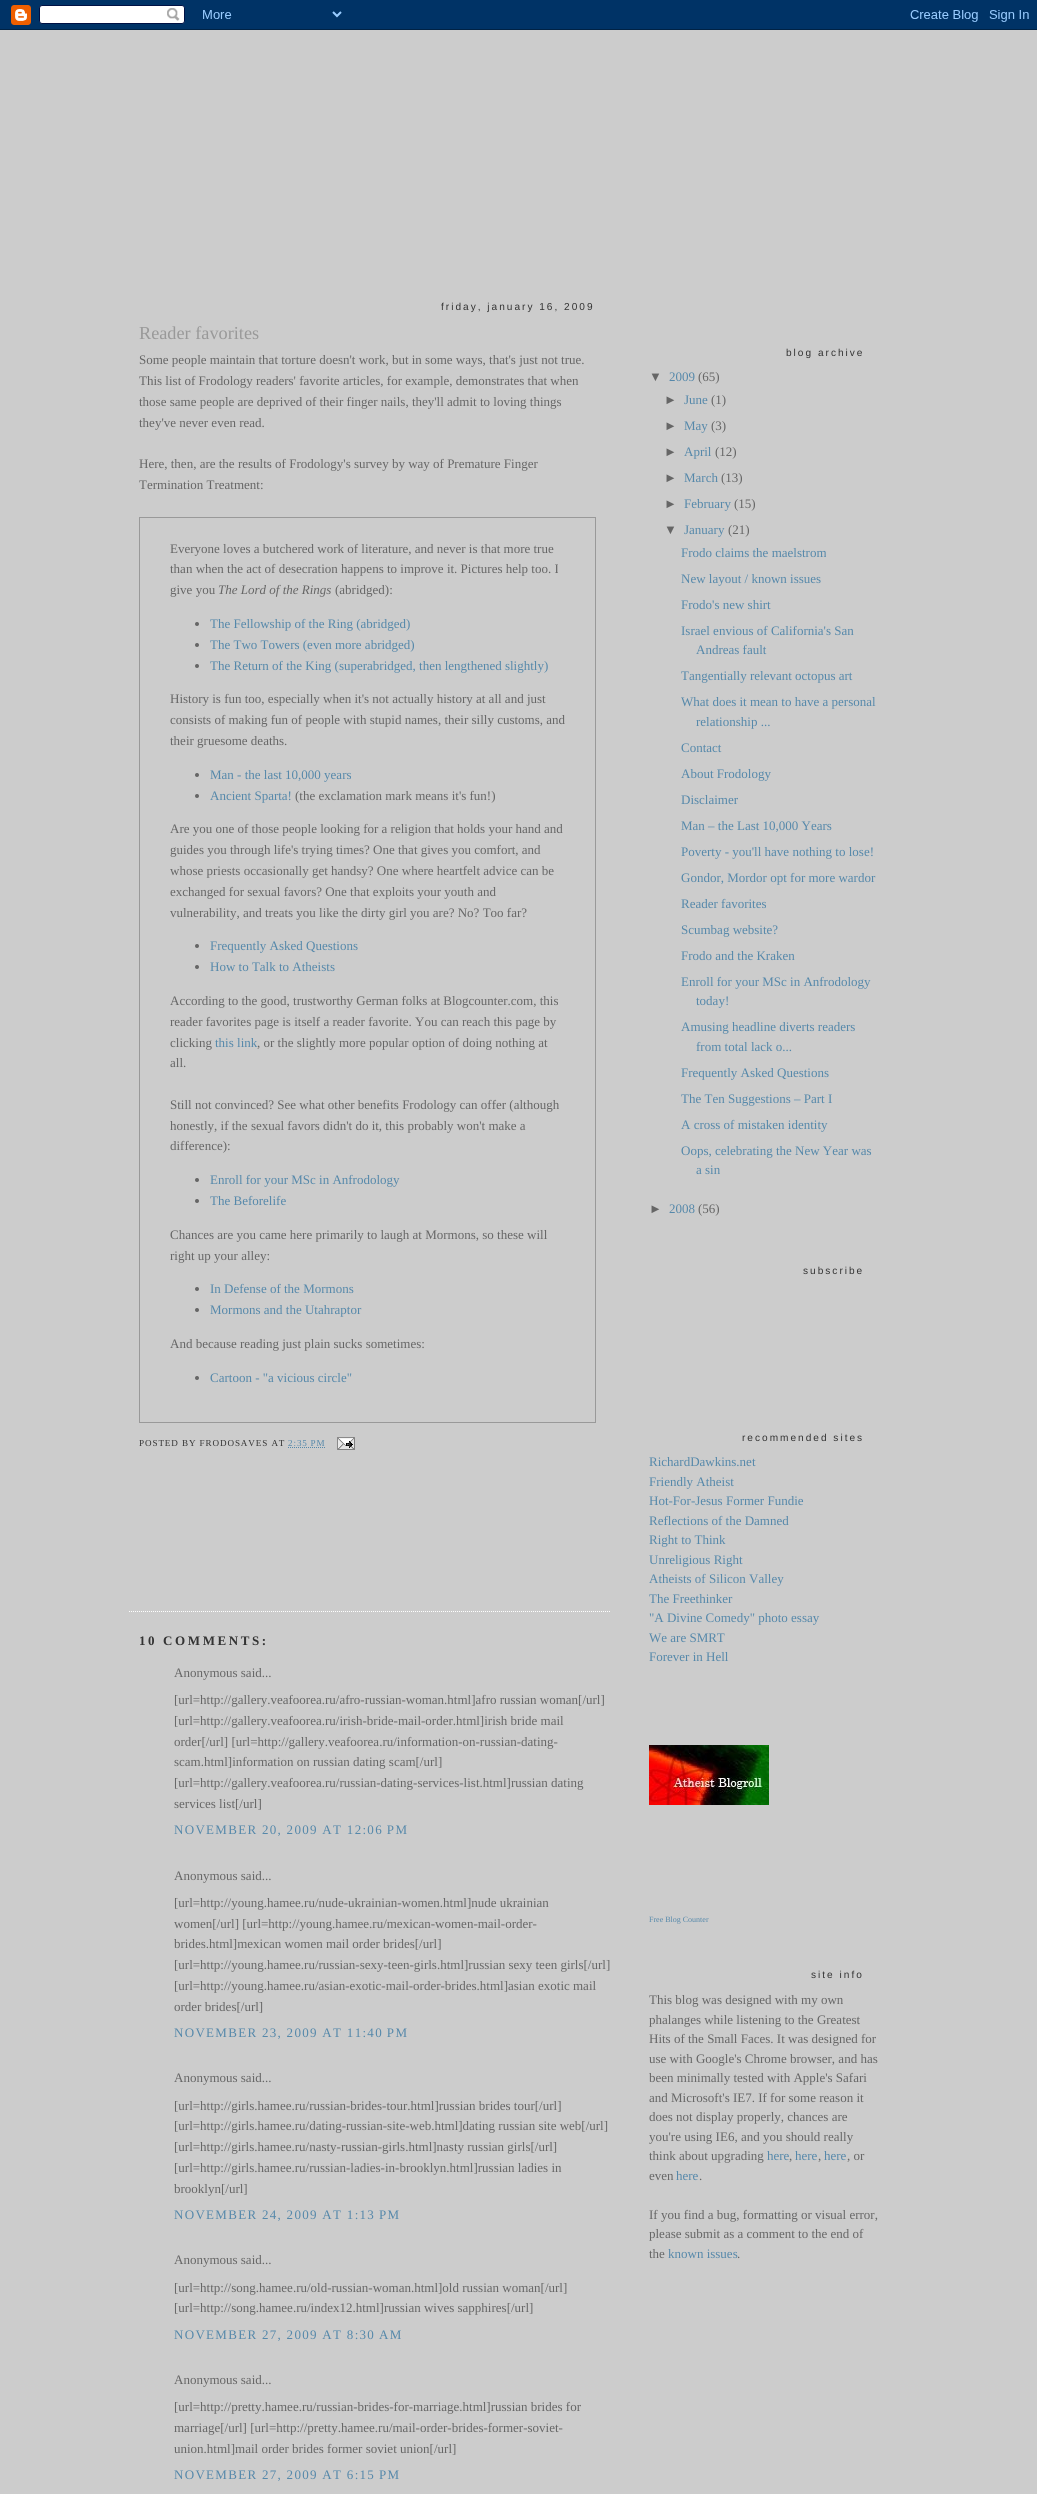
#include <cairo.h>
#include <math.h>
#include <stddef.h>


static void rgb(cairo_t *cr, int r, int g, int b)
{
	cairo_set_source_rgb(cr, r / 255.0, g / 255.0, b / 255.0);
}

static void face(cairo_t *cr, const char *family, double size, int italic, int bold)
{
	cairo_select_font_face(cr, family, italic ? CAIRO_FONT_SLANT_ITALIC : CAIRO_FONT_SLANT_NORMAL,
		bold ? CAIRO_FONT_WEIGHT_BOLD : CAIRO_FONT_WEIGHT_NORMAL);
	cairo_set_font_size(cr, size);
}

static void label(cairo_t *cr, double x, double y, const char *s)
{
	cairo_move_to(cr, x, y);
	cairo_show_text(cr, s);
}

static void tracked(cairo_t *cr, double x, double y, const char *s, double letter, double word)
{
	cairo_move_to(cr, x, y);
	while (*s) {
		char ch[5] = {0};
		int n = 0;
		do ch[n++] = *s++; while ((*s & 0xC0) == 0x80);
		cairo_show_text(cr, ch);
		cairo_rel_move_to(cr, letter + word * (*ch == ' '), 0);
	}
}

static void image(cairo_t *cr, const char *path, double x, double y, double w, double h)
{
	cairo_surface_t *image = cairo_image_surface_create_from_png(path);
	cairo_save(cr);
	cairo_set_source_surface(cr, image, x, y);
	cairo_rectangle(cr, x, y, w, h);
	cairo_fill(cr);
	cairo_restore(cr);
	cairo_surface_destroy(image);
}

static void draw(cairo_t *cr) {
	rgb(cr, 204, 204, 204);
	cairo_paint(cr);
	image(cr, "image0.png", 0, 0, 1037, 30);
	face(cr, "Liberation Sans", 10.1, 0, 0);
	rgb(cr, 51, 51, 51);
	tracked(cr, 441, 310, "friday, january 16, 2009", 2, 0);
	cairo_new_path(cr);
	cairo_move_to(cr, 129, 1611.5);
	cairo_line_to(cr, 611, 1611.5);
	rgb(cr, 255, 255, 255);
	cairo_set_line_width(cr, 1);
	cairo_set_dash(cr, (double[]){1, 1}, 2, 0);
	cairo_stroke(cr);
	face(cr, "Liberation Serif", 18.25, 0, 0);
	rgb(cr, 153, 153, 153);
	label(cr, 139, 339, "Reader favorites");
	face(cr, "Liberation Serif", 13, 0, 0);
	rgb(cr, 102, 102, 102);
	label(cr, 139, 364, "Some people maintain that torture doesn't work, but in some ways, that's just not true.");
	label(cr, 139, 385, "This list of Frodology readers' favorite articles, for example, demonstrates that when");
	label(cr, 139, 406, "those same people are deprived of their finger nails, they'll admit to loving things");
	label(cr, 139, 427, "they've never even read.");
	label(cr, 139, 468, "Here, then, are the results of Frodology's survey by way of Premature Finger");
	label(cr, 139, 489, "Termination Treatment:");
	cairo_rectangle(cr, 139.5, 517.5, 456, 905);
	rgb(cr, 153, 153, 153);
	cairo_set_dash(cr, NULL, 0, 0);
	cairo_stroke(cr);
	rgb(cr, 102, 102, 102);
	label(cr, 170, 553, "Everyone loves a butchered work of literature, and never is that more true");
	label(cr, 170, 573, "than when the act of desecration happens to improve it. Pictures help too. I");
	label(cr, 170, 594, "give you");
	face(cr, "Liberation Serif", 13, 1, 0);
	label(cr, 218, 594, "The Lord of the Rings");
	face(cr, "Liberation Serif", 13, 0, 0);
	label(cr, 335, 594, "(abridged):");
	cairo_new_path(cr);
	cairo_arc(cr, 197, 624, 2, 0, 2 * M_PI);
	cairo_fill(cr);
	rgb(cr, 85, 136, 170);
	label(cr, 210, 628, "The Fellowship of the Ring (abridged)");
	rgb(cr, 102, 102, 102);
	cairo_new_path(cr);
	cairo_arc(cr, 197, 645, 2, 0, 2 * M_PI);
	cairo_fill(cr);
	rgb(cr, 85, 136, 170);
	label(cr, 210, 649, "The Two Towers (even more abridged)");
	rgb(cr, 102, 102, 102);
	cairo_new_path(cr);
	cairo_arc(cr, 197, 666, 2, 0, 2 * M_PI);
	cairo_fill(cr);
	rgb(cr, 85, 136, 170);
	label(cr, 210, 670, "The Return of the King (superabridged, then lengthened slightly)");
	rgb(cr, 102, 102, 102);
	label(cr, 170, 703, "History is fun too, especially when it's not actually history at all and just");
	label(cr, 170, 724, "consists of making fun of people with stupid names, their silly customs, and");
	label(cr, 170, 745, "their gruesome deaths.");
	cairo_new_path(cr);
	cairo_arc(cr, 197, 775, 2, 0, 2 * M_PI);
	cairo_fill(cr);
	rgb(cr, 85, 136, 170);
	label(cr, 210, 779, "Man - the last 10,000 years");
	rgb(cr, 102, 102, 102);
	cairo_new_path(cr);
	cairo_arc(cr, 197, 796, 2, 0, 2 * M_PI);
	cairo_fill(cr);
	rgb(cr, 85, 136, 170);
	label(cr, 210, 800, "Ancient Sparta!");
	rgb(cr, 102, 102, 102);
	label(cr, 295, 800, "(the exclamation mark means it's fun!)");
	label(cr, 170, 833, "Are you one of those people looking for a religion that holds your hand and");
	label(cr, 170, 854, "guides you through life's trying times? One that gives you comfort, and");
	label(cr, 170, 875, "whose priests occasionally get handsy? One where heartfelt advice can be");
	label(cr, 170, 896, "exchanged for sexual favors? One that exploits your youth and");
	label(cr, 170, 917, "vulnerability, and treats you like the dirty girl you are? No? Too far?");
	cairo_new_path(cr);
	cairo_arc(cr, 197, 946, 2, 0, 2 * M_PI);
	cairo_fill(cr);
	rgb(cr, 85, 136, 170);
	label(cr, 210, 950, "Frequently Asked Questions");
	rgb(cr, 102, 102, 102);
	cairo_new_path(cr);
	cairo_arc(cr, 197, 967, 2, 0, 2 * M_PI);
	cairo_fill(cr);
	rgb(cr, 85, 136, 170);
	label(cr, 210, 971, "How to Talk to Atheists");
	rgb(cr, 102, 102, 102);
	label(cr, 170, 1005, "According to the good, trustworthy German folks at Blogcounter.com, this");
	label(cr, 170, 1026, "reader favorites page is itself a reader favorite. You can reach this page by");
	label(cr, 170, 1047, "clicking");
	rgb(cr, 85, 136, 170);
	label(cr, 215, 1047, "this link");
	rgb(cr, 102, 102, 102);
	label(cr, 257, 1047, ", or the slightly more popular option of doing nothing at");
	label(cr, 170, 1067, "all.");
	label(cr, 170, 1109, "Still not convinced? See what other benefits Frodology can offer (although");
	label(cr, 170, 1130, "honestly, if the sexual favors didn't do it, this probably won't make a");
	label(cr, 170, 1150, "difference):");
	cairo_new_path(cr);
	cairo_arc(cr, 197, 1180, 2, 0, 2 * M_PI);
	cairo_fill(cr);
	rgb(cr, 85, 136, 170);
	label(cr, 210, 1184, "Enroll for your MSc in Anfrodology");
	rgb(cr, 102, 102, 102);
	cairo_new_path(cr);
	cairo_arc(cr, 197, 1201, 2, 0, 2 * M_PI);
	cairo_fill(cr);
	rgb(cr, 85, 136, 170);
	label(cr, 210, 1205, "The Beforelife");
	rgb(cr, 102, 102, 102);
	label(cr, 170, 1239, "Chances are you came here primarily to laugh at Mormons, so these will");
	label(cr, 170, 1260, "right up your alley:");
	cairo_new_path(cr);
	cairo_arc(cr, 197, 1289, 2, 0, 2 * M_PI);
	cairo_fill(cr);
	rgb(cr, 85, 136, 170);
	label(cr, 210, 1293, "In Defense of the Mormons");
	rgb(cr, 102, 102, 102);
	cairo_new_path(cr);
	cairo_arc(cr, 197, 1310, 2, 0, 2 * M_PI);
	cairo_fill(cr);
	rgb(cr, 85, 136, 170);
	label(cr, 210, 1314, "Mormons and the Utahraptor");
	rgb(cr, 102, 102, 102);
	label(cr, 170, 1348, "And because reading just plain sucks sometimes:");
	cairo_new_path(cr);
	cairo_arc(cr, 197, 1378, 2, 0, 2 * M_PI);
	cairo_fill(cr);
	rgb(cr, 85, 136, 170);
	label(cr, 210, 1382, "Cartoon - \"a vicious circle\"");
	face(cr, "Liberation Serif", 9.1, 0, 0);
	rgb(cr, 51, 51, 51);
	tracked(cr, 139, 1446, "POSTED BY FRODOSAVES AT", 0.9, 0);
	rgb(cr, 85, 136, 170);
	tracked(cr, 288, 1446, "2:35 PM", 0.9, 0);
	cairo_new_path(cr);
	cairo_move_to(cr, 288, 1447.5);
	cairo_line_to(cr, 325.5, 1447.5);
	cairo_set_dash(cr, (double[]){1, 1}, 2, 0);
	cairo_stroke(cr);
	image(cr, "image1.png", 337, 1437, 18, 13);
	face(cr, "Liberation Serif", 13, 0, 1);
	rgb(cr, 51, 51, 51);
	tracked(cr, 139, 1645, "10 COMMENTS:", 2.6, 0);
	face(cr, "Liberation Serif", 13, 0, 0);
	rgb(cr, 102, 102, 102);
	label(cr, 174, 1677, "Anonymous said...");
	label(cr, 174, 1704, "[url=http://gallery.veafoorea.ru/afro-russian-woman.html]afro russian woman[/url]");
	label(cr, 174, 1725, "[url=http://gallery.veafoorea.ru/irish-bride-mail-order.html]irish bride mail");
	label(cr, 174, 1746, "order[/url] [url=http://gallery.veafoorea.ru/information-on-russian-dating-");
	label(cr, 174, 1766, "scam.html]information on russian dating scam[/url]");
	label(cr, 174, 1787, "[url=http://gallery.veafoorea.ru/russian-dating-services-list.html]russian dating");
	label(cr, 174, 1808, "services list[/url]");
	rgb(cr, 85, 136, 170);
	tracked(cr, 174, 1834, "NOVEMBER 20, 2009 AT 12:06 PM", 1.3, 0);
	rgb(cr, 102, 102, 102);
	label(cr, 174, 1880, "Anonymous said...");
	label(cr, 174, 1907, "[url=http://young.hamee.ru/nude-ukrainian-women.html]nude ukrainian");
	label(cr, 174, 1928, "women[/url] [url=http://young.hamee.ru/mexican-women-mail-order-");
	label(cr, 174, 1948, "brides.html]mexican women mail order brides[/url]");
	label(cr, 174, 1969, "[url=http://young.hamee.ru/russian-sexy-teen-girls.html]russian sexy teen girls[/url]");
	label(cr, 174, 1990, "[url=http://young.hamee.ru/asian-exotic-mail-order-brides.html]asian exotic mail");
	label(cr, 174, 2011, "order brides[/url]");
	rgb(cr, 85, 136, 170);
	tracked(cr, 174, 2037, "NOVEMBER 23, 2009 AT 11:40 PM", 1.3, 0);
	rgb(cr, 102, 102, 102);
	label(cr, 174, 2082, "Anonymous said...");
	label(cr, 174, 2110, "[url=http://girls.hamee.ru/russian-brides-tour.html]russian brides tour[/url]");
	label(cr, 174, 2130, "[url=http://girls.hamee.ru/dating-russian-site-web.html]dating russian site web[/url]");
	label(cr, 174, 2151, "[url=http://girls.hamee.ru/nasty-russian-girls.html]nasty russian girls[/url]");
	label(cr, 174, 2172, "[url=http://girls.hamee.ru/russian-ladies-in-brooklyn.html]russian ladies in");
	label(cr, 174, 2193, "brooklyn[/url]");
	rgb(cr, 85, 136, 170);
	tracked(cr, 174, 2219, "NOVEMBER 24, 2009 AT 1:13 PM", 1.3, 0);
	rgb(cr, 102, 102, 102);
	label(cr, 174, 2264, "Anonymous said...");
	label(cr, 174, 2292, "[url=http://song.hamee.ru/old-russian-woman.html]old russian woman[/url]");
	label(cr, 174, 2312, "[url=http://song.hamee.ru/index12.html]russian wives sapphires[/url]");
	rgb(cr, 85, 136, 170);
	tracked(cr, 174, 2339, "NOVEMBER 27, 2009 AT 8:30 AM", 1.3, 0);
	rgb(cr, 102, 102, 102);
	label(cr, 174, 2384, "Anonymous said...");
	label(cr, 174, 2411, "[url=http://pretty.hamee.ru/russian-brides-for-marriage.html]russian brides for");
	label(cr, 174, 2432, "marriage[/url] [url=http://pretty.hamee.ru/mail-order-brides-former-soviet-");
	label(cr, 174, 2453, "union.html]mail order brides former soviet union[/url]");
	rgb(cr, 85, 136, 170);
	tracked(cr, 174, 2479, "NOVEMBER 27, 2009 AT 6:15 PM", 1.3, 0);
	face(cr, "Liberation Sans", 10.1, 0, 0);
	rgb(cr, 51, 51, 51);
	tracked(cr, 786, 356, "blog archive", 2, 0);
	face(cr, "Liberation Sans", 13, 0, 0);
	rgb(cr, 102, 102, 102);
	label(cr, 649, 381, "▼");
	face(cr, "Liberation Serif", 13, 0, 0);
	rgb(cr, 85, 136, 170);
	label(cr, 669, 381, "2009");
	rgb(cr, 102, 102, 102);
	label(cr, 698, 381, "(65)");
	face(cr, "Liberation Sans", 13, 0, 0);
	label(cr, 664, 404, "►");
	face(cr, "Liberation Serif", 13, 0, 0);
	rgb(cr, 85, 136, 170);
	label(cr, 684, 404, "June");
	rgb(cr, 102, 102, 102);
	label(cr, 711, 404, "(1)");
	face(cr, "Liberation Sans", 13, 0, 0);
	label(cr, 664, 430, "►");
	face(cr, "Liberation Serif", 13, 0, 0);
	rgb(cr, 85, 136, 170);
	label(cr, 684, 430, "May");
	rgb(cr, 102, 102, 102);
	label(cr, 711, 430, "(3)");
	face(cr, "Liberation Sans", 13, 0, 0);
	label(cr, 664, 456, "►");
	face(cr, "Liberation Serif", 13, 0, 0);
	rgb(cr, 85, 136, 170);
	label(cr, 684, 456, "April");
	rgb(cr, 102, 102, 102);
	label(cr, 715, 456, "(12)");
	face(cr, "Liberation Sans", 13, 0, 0);
	label(cr, 664, 482, "►");
	face(cr, "Liberation Serif", 13, 0, 0);
	rgb(cr, 85, 136, 170);
	label(cr, 684, 482, "March");
	rgb(cr, 102, 102, 102);
	label(cr, 721, 482, "(13)");
	face(cr, "Liberation Sans", 13, 0, 0);
	label(cr, 664, 508, "►");
	face(cr, "Liberation Serif", 13, 0, 0);
	rgb(cr, 85, 136, 170);
	label(cr, 684, 508, "February");
	rgb(cr, 102, 102, 102);
	label(cr, 734, 508, "(15)");
	face(cr, "Liberation Sans", 13, 0, 0);
	label(cr, 664, 534, "▼");
	face(cr, "Liberation Serif", 13, 0, 0);
	rgb(cr, 85, 136, 170);
	label(cr, 684, 534, "January");
	rgb(cr, 102, 102, 102);
	label(cr, 728, 534, "(21)");
	rgb(cr, 85, 136, 170);
	label(cr, 681, 557, "Frodo claims the maelstrom");
	label(cr, 681, 583, "New layout / known issues");
	label(cr, 681, 609, "Frodo's new shirt");
	label(cr, 681, 635, "Israel envious of California's San");
	label(cr, 696, 654, "Andreas fault");
	label(cr, 681, 680, "Tangentially relevant octopus art");
	label(cr, 681, 706, "What does it mean to have a personal");
	label(cr, 696, 726, "relationship ...");
	label(cr, 681, 752, "Contact");
	label(cr, 681, 778, "About Frodology");
	label(cr, 681, 804, "Disclaimer");
	label(cr, 681, 830, "Man – the Last 10,000 Years");
	label(cr, 681, 856, "Poverty - you'll have nothing to lose!");
	label(cr, 681, 882, "Gondor, Mordor opt for more wardor");
	label(cr, 681, 908, "Reader favorites");
	label(cr, 681, 934, "Scumbag website?");
	label(cr, 681, 960, "Frodo and the Kraken");
	label(cr, 681, 986, "Enroll for your MSc in Anfrodology");
	label(cr, 696, 1005, "today!");
	label(cr, 681, 1031, "Amusing headline diverts readers");
	label(cr, 696, 1051, "from total lack o...");
	label(cr, 681, 1077, "Frequently Asked Questions");
	label(cr, 681, 1103, "The Ten Suggestions – Part I");
	label(cr, 681, 1129, "A cross of mistaken identity");
	label(cr, 681, 1155, "Oops, celebrating the New Year was");
	label(cr, 696, 1174, "a sin");
	face(cr, "Liberation Sans", 13, 0, 0);
	rgb(cr, 102, 102, 102);
	label(cr, 649, 1213, "►");
	face(cr, "Liberation Serif", 13, 0, 0);
	rgb(cr, 85, 136, 170);
	label(cr, 669, 1213, "2008");
	rgb(cr, 102, 102, 102);
	label(cr, 698, 1213, "(56)");
	face(cr, "Liberation Sans", 10.1, 0, 0);
	rgb(cr, 51, 51, 51);
	tracked(cr, 803, 1274, "subscribe", 2, 0);
	tracked(cr, 742, 1441, "recommended sites", 2, 0);
	face(cr, "Liberation Serif", 13, 0, 0);
	rgb(cr, 85, 136, 170);
	label(cr, 649, 1466, "RichardDawkins.net");
	label(cr, 649, 1486, "Friendly Atheist");
	label(cr, 649, 1505, "Hot-For-Jesus Former Fundie");
	label(cr, 649, 1525, "Reflections of the Damned");
	label(cr, 649, 1544, "Right to Think");
	label(cr, 649, 1564, "Unreligious Right");
	label(cr, 649, 1583, "Atheists of Silicon Valley");
	label(cr, 649, 1603, "The Freethinker");
	label(cr, 649, 1622, "\"A Divine Comedy\" photo essay");
	label(cr, 649, 1642, "We are SMRT");
	label(cr, 649, 1661, "Forever in Hell");
	image(cr, "image2.png", 649, 1745, 120, 60);
	face(cr, "Liberation Serif", 8, 0, 0);
	label(cr, 649, 1922, "Free Blog Counter");
	face(cr, "Liberation Sans", 10.1, 0, 0);
	rgb(cr, 51, 51, 51);
	tracked(cr, 811, 1978, "site info", 2, 0);
	face(cr, "Liberation Serif", 13, 0, 0);
	rgb(cr, 102, 102, 102);
	label(cr, 649, 2004, "This blog was designed with my own");
	label(cr, 649, 2024, "phalanges while listening to the Greatest");
	label(cr, 649, 2043, "Hits of the Small Faces. It was designed for");
	label(cr, 649, 2063, "use with Google's Chrome browser, and has");
	label(cr, 649, 2082, "been minimally tested with Apple's Safari");
	label(cr, 649, 2102, "and Microsoft's IE7. If for some reason it");
	label(cr, 649, 2121, "does not display properly, chances are");
	label(cr, 649, 2141, "you're using IE6, and you should really");
	label(cr, 649, 2160, "think about upgrading");
	rgb(cr, 85, 136, 170);
	label(cr, 767, 2160, "here");
	rgb(cr, 102, 102, 102);
	label(cr, 789, 2160, ",");
	rgb(cr, 85, 136, 170);
	label(cr, 795, 2160, "here");
	rgb(cr, 102, 102, 102);
	label(cr, 818, 2160, ",");
	rgb(cr, 85, 136, 170);
	label(cr, 824, 2160, "here");
	rgb(cr, 102, 102, 102);
	label(cr, 847, 2160, ", or");
	label(cr, 649, 2180, "even");
	rgb(cr, 85, 136, 170);
	label(cr, 676, 2180, "here");
	rgb(cr, 102, 102, 102);
	label(cr, 699, 2180, ".");
	label(cr, 649, 2219, "If you find a bug, formatting or visual error,");
	label(cr, 649, 2238, "please submit as a comment to the end of");
	label(cr, 649, 2258, "the");
	rgb(cr, 85, 136, 170);
	label(cr, 668, 2258, "known issues");
	rgb(cr, 102, 102, 102);
	label(cr, 737, 2258, ".");
}

int main(void) {
	cairo_surface_t *surface = cairo_image_surface_create(CAIRO_FORMAT_RGB24, 1037, 2494);
	cairo_t *cr = cairo_create(surface);
	cairo_font_options_t *options = cairo_font_options_create();
	cairo_font_options_set_hint_metrics(options, CAIRO_HINT_METRICS_OFF);
	cairo_font_options_set_hint_style(options, CAIRO_HINT_STYLE_NONE);
	cairo_set_font_options(cr, options);
	cairo_set_miter_limit(cr, 4);
	draw(cr);
	cairo_surface_write_to_png(surface, "render.png");
	cairo_font_options_destroy(options);
	cairo_destroy(cr);
	cairo_surface_destroy(surface);
	return 0;
}
